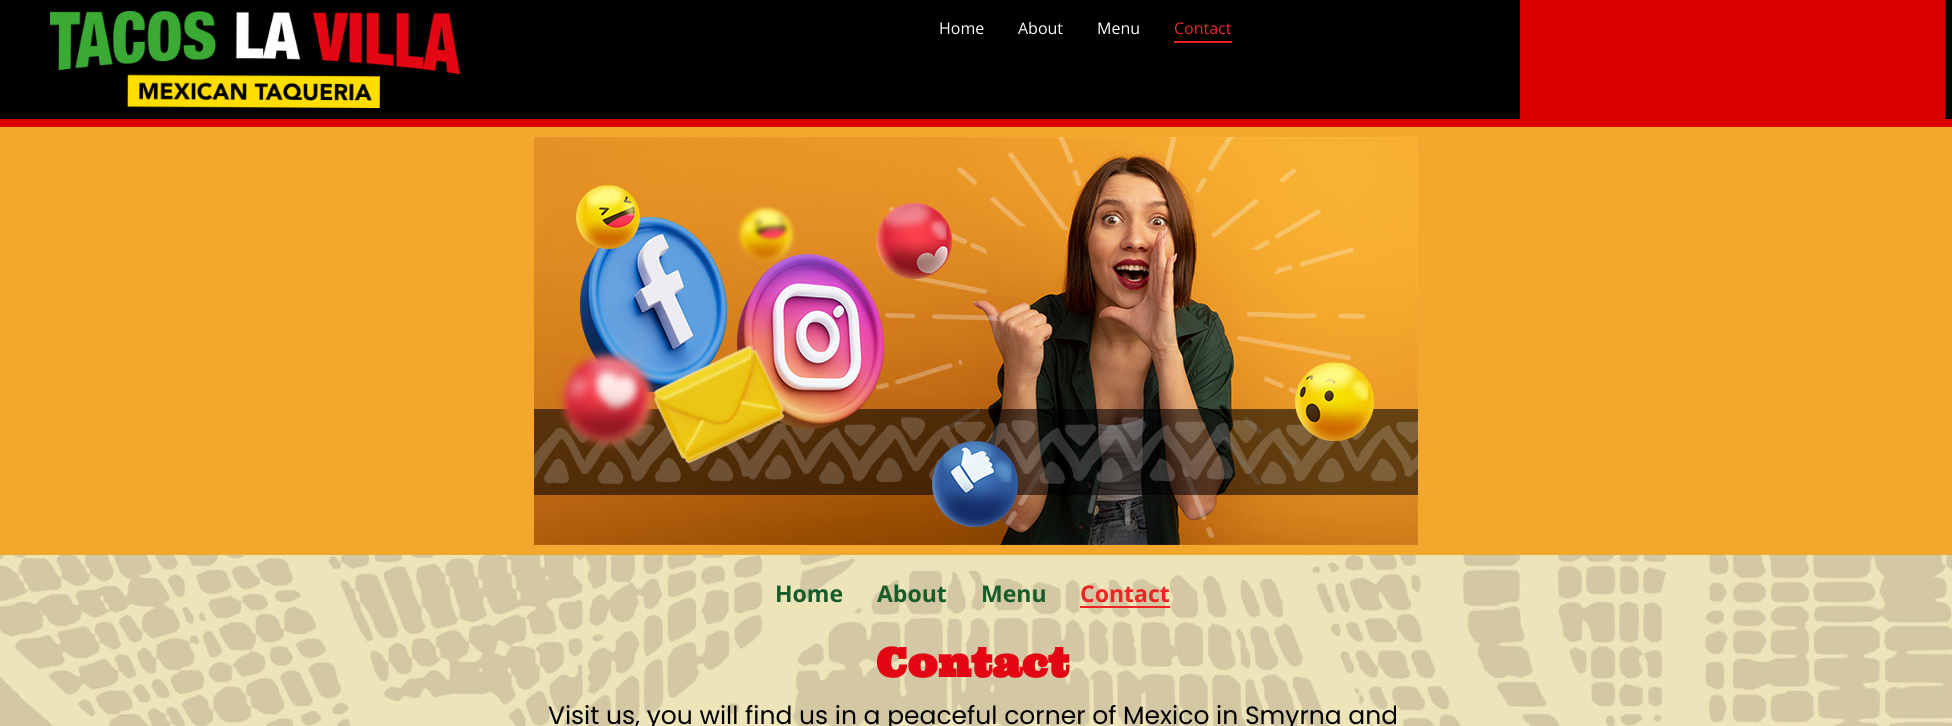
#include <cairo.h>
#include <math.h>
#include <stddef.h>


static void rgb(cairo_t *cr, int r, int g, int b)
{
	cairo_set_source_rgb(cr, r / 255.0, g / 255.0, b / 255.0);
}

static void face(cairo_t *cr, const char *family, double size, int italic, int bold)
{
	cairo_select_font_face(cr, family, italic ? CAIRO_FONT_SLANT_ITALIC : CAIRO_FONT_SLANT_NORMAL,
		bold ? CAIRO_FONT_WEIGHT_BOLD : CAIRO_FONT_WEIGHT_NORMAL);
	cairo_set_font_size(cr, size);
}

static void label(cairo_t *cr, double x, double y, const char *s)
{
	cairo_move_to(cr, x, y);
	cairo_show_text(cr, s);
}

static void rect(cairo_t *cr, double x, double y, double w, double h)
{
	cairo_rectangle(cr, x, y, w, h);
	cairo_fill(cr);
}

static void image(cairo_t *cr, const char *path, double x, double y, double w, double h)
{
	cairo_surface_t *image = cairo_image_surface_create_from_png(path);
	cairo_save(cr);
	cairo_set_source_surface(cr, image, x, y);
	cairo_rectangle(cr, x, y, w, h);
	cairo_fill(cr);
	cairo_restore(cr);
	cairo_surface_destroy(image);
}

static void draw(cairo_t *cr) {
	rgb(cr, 0, 0, 0);
	cairo_paint(cr);
	image(cr, "image0.png", 50, 11, 410, 97);
	face(cr, "Open Sans", 16, 0, 0);
	rgb(cr, 255, 255, 255);
	label(cr, 939, 34, "Home");
	label(cr, 1018, 34, "About");
	label(cr, 1097, 34, "Menu");
	rgb(cr, 236, 36, 36);
	label(cr, 1174, 34, "Contact");
	rect(cr, 1174, 41, 58, 2);
	rgb(cr, 219, 0, 0);
	rect(cr, 1520, 0, 425, 119);
	rect(cr, 0, 119, 1952, 8);
	rgb(cr, 243, 167, 45);
	rect(cr, 0, 127, 1952, 428);
	image(cr, "image1.png", 534, 137, 884, 408);
	image(cr, "image2.png", 0, 555, 1952, 171);
	face(cr, "Open Sans", 23, 0, 1);
	rgb(cr, 22, 92, 42);
	label(cr, 775, 602, "Home");
	label(cr, 877, 602, "About");
	label(cr, 981, 602, "Menu");
	rgb(cr, 236, 36, 36);
	label(cr, 1080, 602, "Contact");
	rect(cr, 1080, 606, 90, 2);
	face(cr, "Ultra", 40, 0, 1);
	rgb(cr, 227, 6, 19);
	label(cr, 876, 677, "Contact");
	face(cr, "Poppins", 25, 0, 0);
	rgb(cr, 0, 0, 0);
	label(cr, 548, 724, "Visit us, you will find us in a peaceful corner of Mexico in Smyrna and");
}

int main(void) {
	cairo_surface_t *surface = cairo_image_surface_create(CAIRO_FORMAT_RGB24, 1952, 726);
	cairo_t *cr = cairo_create(surface);
	cairo_font_options_t *options = cairo_font_options_create();
	cairo_font_options_set_hint_metrics(options, CAIRO_HINT_METRICS_OFF);
	cairo_font_options_set_hint_style(options, CAIRO_HINT_STYLE_NONE);
	cairo_set_font_options(cr, options);
	cairo_set_miter_limit(cr, 4);
	draw(cr);
	cairo_surface_write_to_png(surface, "render.png");
	cairo_font_options_destroy(options);
	cairo_destroy(cr);
	cairo_surface_destroy(surface);
	return 0;
}
